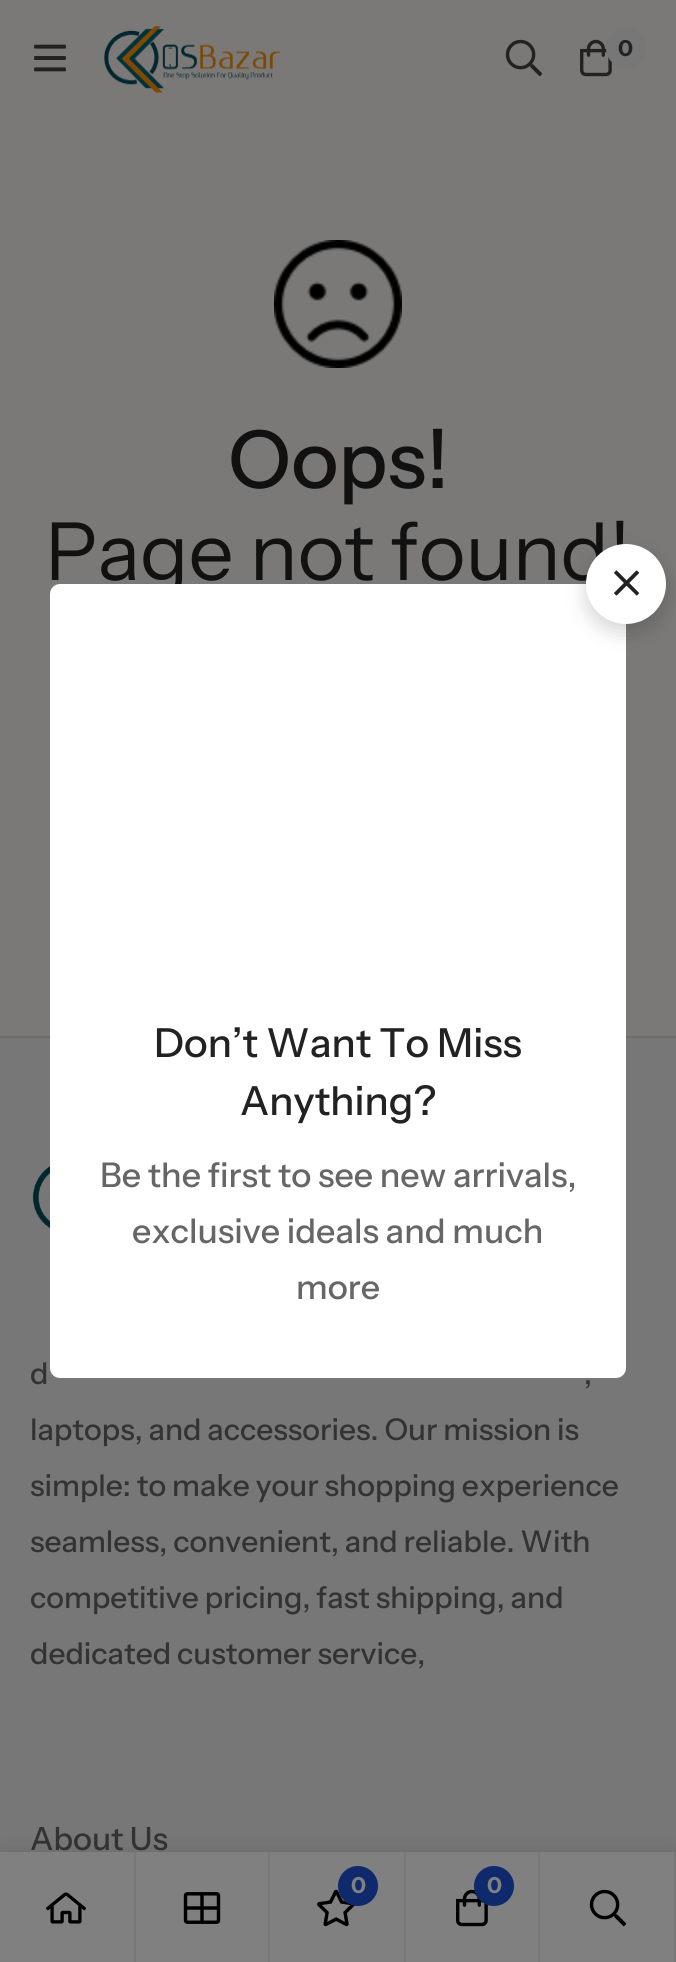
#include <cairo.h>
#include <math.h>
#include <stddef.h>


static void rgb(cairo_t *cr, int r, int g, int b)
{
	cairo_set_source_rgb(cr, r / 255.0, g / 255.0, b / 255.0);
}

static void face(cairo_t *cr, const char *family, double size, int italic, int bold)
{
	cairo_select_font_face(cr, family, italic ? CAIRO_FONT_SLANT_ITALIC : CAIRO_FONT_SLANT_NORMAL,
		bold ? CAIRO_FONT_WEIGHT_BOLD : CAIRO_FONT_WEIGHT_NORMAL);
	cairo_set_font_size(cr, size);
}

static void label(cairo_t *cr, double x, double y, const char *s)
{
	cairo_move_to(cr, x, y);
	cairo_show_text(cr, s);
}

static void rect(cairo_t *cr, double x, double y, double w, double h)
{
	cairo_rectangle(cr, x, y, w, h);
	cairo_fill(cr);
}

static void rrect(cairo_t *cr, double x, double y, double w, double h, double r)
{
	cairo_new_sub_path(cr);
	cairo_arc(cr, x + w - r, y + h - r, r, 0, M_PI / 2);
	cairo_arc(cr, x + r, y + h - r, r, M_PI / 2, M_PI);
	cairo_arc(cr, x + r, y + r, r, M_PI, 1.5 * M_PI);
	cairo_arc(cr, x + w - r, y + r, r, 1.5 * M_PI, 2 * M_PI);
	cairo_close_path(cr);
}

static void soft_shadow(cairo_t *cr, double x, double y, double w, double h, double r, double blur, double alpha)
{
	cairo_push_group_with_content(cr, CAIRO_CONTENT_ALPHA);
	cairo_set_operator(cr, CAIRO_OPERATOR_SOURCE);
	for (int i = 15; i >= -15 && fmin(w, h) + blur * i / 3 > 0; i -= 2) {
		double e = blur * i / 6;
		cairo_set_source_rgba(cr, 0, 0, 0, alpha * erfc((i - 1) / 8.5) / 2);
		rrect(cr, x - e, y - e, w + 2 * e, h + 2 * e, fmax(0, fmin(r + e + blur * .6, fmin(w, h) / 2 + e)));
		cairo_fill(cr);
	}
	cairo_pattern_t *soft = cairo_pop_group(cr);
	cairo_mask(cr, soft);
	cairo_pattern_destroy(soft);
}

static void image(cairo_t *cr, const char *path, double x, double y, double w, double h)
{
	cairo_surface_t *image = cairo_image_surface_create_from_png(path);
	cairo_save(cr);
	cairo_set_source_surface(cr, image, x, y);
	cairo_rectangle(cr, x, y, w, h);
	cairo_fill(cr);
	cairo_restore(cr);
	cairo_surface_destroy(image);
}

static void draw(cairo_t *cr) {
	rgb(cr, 123, 121, 119);
	cairo_paint(cr);
	image(cr, "image0.png", 34, 44, 32, 28);
	image(cr, "image1.png", 104, 26, 177, 68);
	image(cr, "image2.png", 505, 39, 38, 38);
	image(cr, "image3.png", 580, 39, 32, 38);
	rgb(cr, 119, 119, 119);
	cairo_arc(cr, 626, 48, 20, 0, 2 * M_PI);
	cairo_fill(cr);
	face(cr, "Instrument Sans", 22, 0, 1);
	rgb(cr, 34, 34, 34);
	label(cr, 618, 56, "0");
	image(cr, "image4.png", 274, 240, 128, 128);
	face(cr, "Instrument Sans Medium", 80, 0, 0);
	rgb(cr, 17, 17, 17);
	label(cr, 228, 488, "Oops!");
	face(cr, "Instrument Sans", 80, 0, 0);
	label(cr, 45, 580, "Page not found!");
	rgb(cr, 119, 119, 119);
	rect(cr, 0, 1038, 676, 814);
	rgb(cr, 108, 108, 108);
	rect(cr, 0, 1036, 676, 2);
	image(cr, "image5.png", 32, 1166, 18, 63);
	face(cr, "Instrument Sans Medium", 30, 0, 0);
	rgb(cr, 51, 51, 51);
	label(cr, 30, 1384, "d");
	label(cr, 584, 1384, ",");
	label(cr, 30, 1440, "laptops, and accessories. Our mission is");
	label(cr, 30, 1496, "simple: to make your shopping experience");
	label(cr, 30, 1552, "seamless, convenient, and reliable. With");
	label(cr, 30, 1608, "competitive pricing, fast shipping, and");
	label(cr, 30, 1664, "dedicated customer service,");
	face(cr, "Instrument Sans Medium", 32, 0, 0);
	label(cr, 30, 1850, "About Us");
	rgb(cr, 255, 255, 255);
	rrect(cr, 50, 584, 576, 794, 10);
	cairo_fill(cr);
	rgb(cr, 0, 0, 0);
	soft_shadow(cr, 586, 552, 80, 80, 40, 10, 0.17);
	rgb(cr, 255, 255, 255);
	cairo_arc(cr, 626, 584, 40, 0, 2 * M_PI);
	cairo_fill(cr);
	image(cr, "image6.png", 614, 570, 26, 26);
	face(cr, "Instrument Sans Medium", 40, 0, 0);
	rgb(cr, 34, 34, 34);
	label(cr, 154, 1057, "Don’t Want To Miss");
	label(cr, 240, 1115, "Anything?");
	face(cr, "Instrument Sans Medium", 34, 0, 0);
	rgb(cr, 102, 102, 102);
	label(cr, 100, 1187, "Be the first to see new arrivals,");
	label(cr, 132, 1243, "exclusive ideals and much");
	label(cr, 296, 1299, "more");
	rgb(cr, 0, 0, 0);
	soft_shadow(cr, 0, 1852, 676, 110, 0, 10, 0.11);
	rgb(cr, 128, 128, 128);
	rect(cr, 0, 1852, 674, 110);
	rgb(cr, 119, 119, 119);
	rect(cr, 134, 1852, 2, 110);
	image(cr, "image7.png", 46, 1892, 40, 32);
	rect(cr, 268, 1852, 2, 110);
	image(cr, "image8.png", 183, 1892, 38, 32);
	rect(cr, 404, 1852, 2, 110);
	image(cr, "image9.png", 317, 1889, 38, 38);
	rgb(cr, 14, 41, 108);
	cairo_arc(cr, 358, 1886, 20, 0, 2 * M_PI);
	cairo_fill(cr);
	face(cr, "Instrument Sans", 22, 0, 1);
	rgb(cr, 128, 128, 128);
	label(cr, 351, 1893, "0");
	rgb(cr, 119, 119, 119);
	rect(cr, 538, 1852, 2, 110);
	image(cr, "image10.png", 456, 1889, 32, 38);
	rgb(cr, 14, 41, 108);
	cairo_arc(cr, 494, 1886, 20, 0, 2 * M_PI);
	cairo_fill(cr);
	rgb(cr, 128, 128, 128);
	label(cr, 487, 1893, "0");
	rgb(cr, 119, 119, 119);
	rect(cr, 674, 1852, 2, 110);
	image(cr, "image11.png", 589, 1889, 38, 38);
}

int main(void) {
	cairo_surface_t *surface = cairo_image_surface_create(CAIRO_FORMAT_RGB24, 676, 1962);
	cairo_t *cr = cairo_create(surface);
	cairo_font_options_t *options = cairo_font_options_create();
	cairo_font_options_set_hint_metrics(options, CAIRO_HINT_METRICS_OFF);
	cairo_font_options_set_hint_style(options, CAIRO_HINT_STYLE_NONE);
	cairo_set_font_options(cr, options);
	cairo_set_miter_limit(cr, 4);
	draw(cr);
	cairo_surface_write_to_png(surface, "render.png");
	cairo_font_options_destroy(options);
	cairo_destroy(cr);
	cairo_surface_destroy(surface);
	return 0;
}
